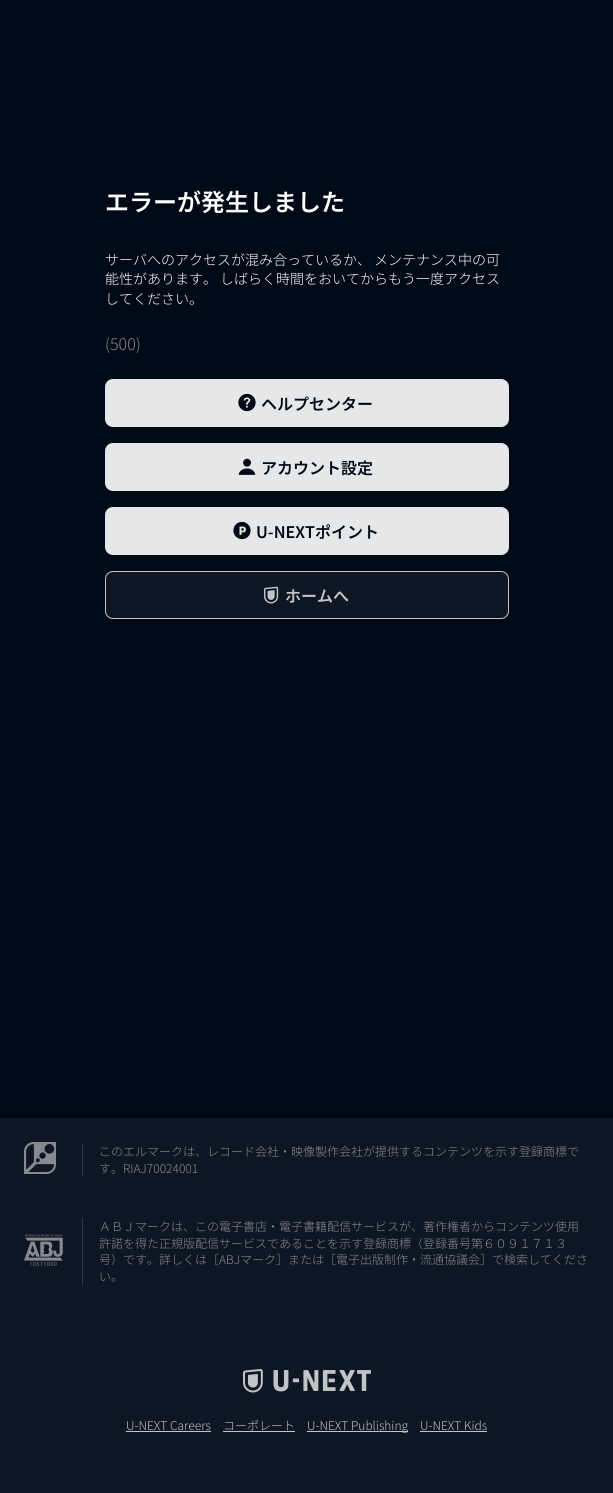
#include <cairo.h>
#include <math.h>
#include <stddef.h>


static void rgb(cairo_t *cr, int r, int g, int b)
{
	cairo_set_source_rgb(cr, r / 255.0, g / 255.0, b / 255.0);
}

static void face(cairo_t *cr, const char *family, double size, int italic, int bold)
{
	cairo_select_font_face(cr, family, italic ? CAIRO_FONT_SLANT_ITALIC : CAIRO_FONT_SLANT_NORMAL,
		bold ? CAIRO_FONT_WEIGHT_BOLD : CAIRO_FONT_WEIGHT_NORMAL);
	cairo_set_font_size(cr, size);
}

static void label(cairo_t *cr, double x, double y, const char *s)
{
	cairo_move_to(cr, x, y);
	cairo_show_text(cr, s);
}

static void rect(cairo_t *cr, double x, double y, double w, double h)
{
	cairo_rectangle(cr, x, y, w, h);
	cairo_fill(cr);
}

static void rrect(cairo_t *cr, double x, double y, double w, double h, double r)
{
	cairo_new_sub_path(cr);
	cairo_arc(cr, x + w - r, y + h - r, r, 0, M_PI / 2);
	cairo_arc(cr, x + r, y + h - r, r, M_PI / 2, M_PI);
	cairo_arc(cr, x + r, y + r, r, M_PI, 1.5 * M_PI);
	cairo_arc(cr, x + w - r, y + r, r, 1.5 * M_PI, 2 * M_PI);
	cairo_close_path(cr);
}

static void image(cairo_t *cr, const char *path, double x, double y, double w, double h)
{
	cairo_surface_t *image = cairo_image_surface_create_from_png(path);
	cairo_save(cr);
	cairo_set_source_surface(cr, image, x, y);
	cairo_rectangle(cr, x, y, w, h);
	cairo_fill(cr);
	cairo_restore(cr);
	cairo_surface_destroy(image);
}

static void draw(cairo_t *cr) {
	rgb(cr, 0, 10, 23);
	cairo_paint(cr);
	face(cr, "Noto Sans JP SemiBold", 24, 0, 0);
	rgb(cr, 255, 255, 255);
	label(cr, 105, 211, "エラーが発生しました");
	face(cr, "Noto Sans JP Light", 14, 0, 0);
	label(cr, 105, 265, "サーバへのアクセスが混み合っているか、 メンテナンス中の可");
	label(cr, 105, 284, "能性があります。 しばらく時間をおいてからもう一度アクセス");
	label(cr, 105, 304, "してください。");
	face(cr, "Noto Sans JP Light", 16, 0, 0);
	rgb(cr, 128, 133, 139);
	label(cr, 105, 350, "(500)");
	rgb(cr, 230, 231, 232);
	rrect(cr, 105, 379, 404, 48, 8);
	cairo_fill(cr);
	image(cr, "image0.png", 238, 393, 18, 19);
	face(cr, "Noto Sans JP SemiBold", 16, 0, 0);
	rgb(cr, 0, 10, 23);
	label(cr, 261, 410, "ヘルプセンター");
	rgb(cr, 230, 231, 232);
	rrect(cr, 105, 443, 404, 48, 8);
	cairo_fill(cr);
	image(cr, "image1.png", 238, 458, 18, 17);
	rgb(cr, 0, 10, 23);
	label(cr, 261, 474, "アカウント設定");
	rgb(cr, 230, 231, 232);
	rrect(cr, 105, 507, 404, 48, 8);
	cairo_fill(cr);
	image(cr, "image2.png", 233, 521, 18, 19);
	rgb(cr, 0, 10, 23);
	label(cr, 256, 538, "U-NEXTポイント");
	rgb(cr, 13, 22, 35);
	rrect(cr, 105, 571, 404, 48, 8);
	cairo_fill(cr);
	rrect(cr, 105.5, 571.5, 403, 47, 7.5);
	cairo_set_source_rgba(cr, 1, 1, 1, 0.75);
	cairo_set_line_width(cr, 1);
	cairo_stroke(cr);
	image(cr, "image3.png", 264, 586, 15, 18);
	rgb(cr, 195, 197, 200);
	label(cr, 285, 602, "ホームへ");
	rgb(cr, 13, 22, 35);
	rect(cr, 0, 1118, 613, 375);
	image(cr, "image4.png", 24, 1142, 32, 32);
	rgb(cr, 49, 57, 68);
	rect(cr, 82, 1143, 1, 34);
	face(cr, "Noto Sans JP Light", 12, 0, 0);
	rgb(cr, 134, 139, 145);
	label(cr, 99, 1156, "このエルマークは、レコード会社・映像製作会社が提供するコンテンツを示す登録商標で");
	label(cr, 99, 1173, "す。RIAJ70024001");
	image(cr, "image5.png", 24, 1234, 39, 32);
	rgb(cr, 49, 57, 68);
	rect(cr, 82, 1218, 1, 67);
	rgb(cr, 134, 139, 145);
	label(cr, 99, 1231, "ＡＢＪマークは、この電子書店・電子書籍配信サービスが、著作権者からコンテンツ使用");
	label(cr, 99, 1248, "許諾を得た正規版配信サービスであることを示す登録商標（登録番号第６０９１７１３");
	label(cr, 99, 1264, "号）です。詳しくは［ABJマーク］または［電子出版制作・流通協議会］で検索してくださ");
	label(cr, 99, 1281, "い。");
	image(cr, "image6.png", 243, 1369, 128, 24);
	rgb(cr, 195, 197, 200);
	label(cr, 126, 1430, "U-NEXT Careers");
	rect(cr, 126, 1431, 85, 1);
	label(cr, 223, 1430, "コーポレート");
	rect(cr, 223, 1431, 72, 1);
	rect(cr, 307, 1431, 101, 1);
	label(cr, 307, 1430, "U-NEXT Publishing");
	label(cr, 420, 1430, "U-NEXT Kids");
	rect(cr, 420, 1431, 67, 1);
}

int main(void) {
	cairo_surface_t *surface = cairo_image_surface_create(CAIRO_FORMAT_RGB24, 613, 1493);
	cairo_t *cr = cairo_create(surface);
	cairo_font_options_t *options = cairo_font_options_create();
	cairo_font_options_set_hint_metrics(options, CAIRO_HINT_METRICS_OFF);
	cairo_font_options_set_hint_style(options, CAIRO_HINT_STYLE_NONE);
	cairo_set_font_options(cr, options);
	cairo_set_miter_limit(cr, 4);
	draw(cr);
	cairo_surface_write_to_png(surface, "render.png");
	cairo_font_options_destroy(options);
	cairo_destroy(cr);
	cairo_surface_destroy(surface);
	return 0;
}
